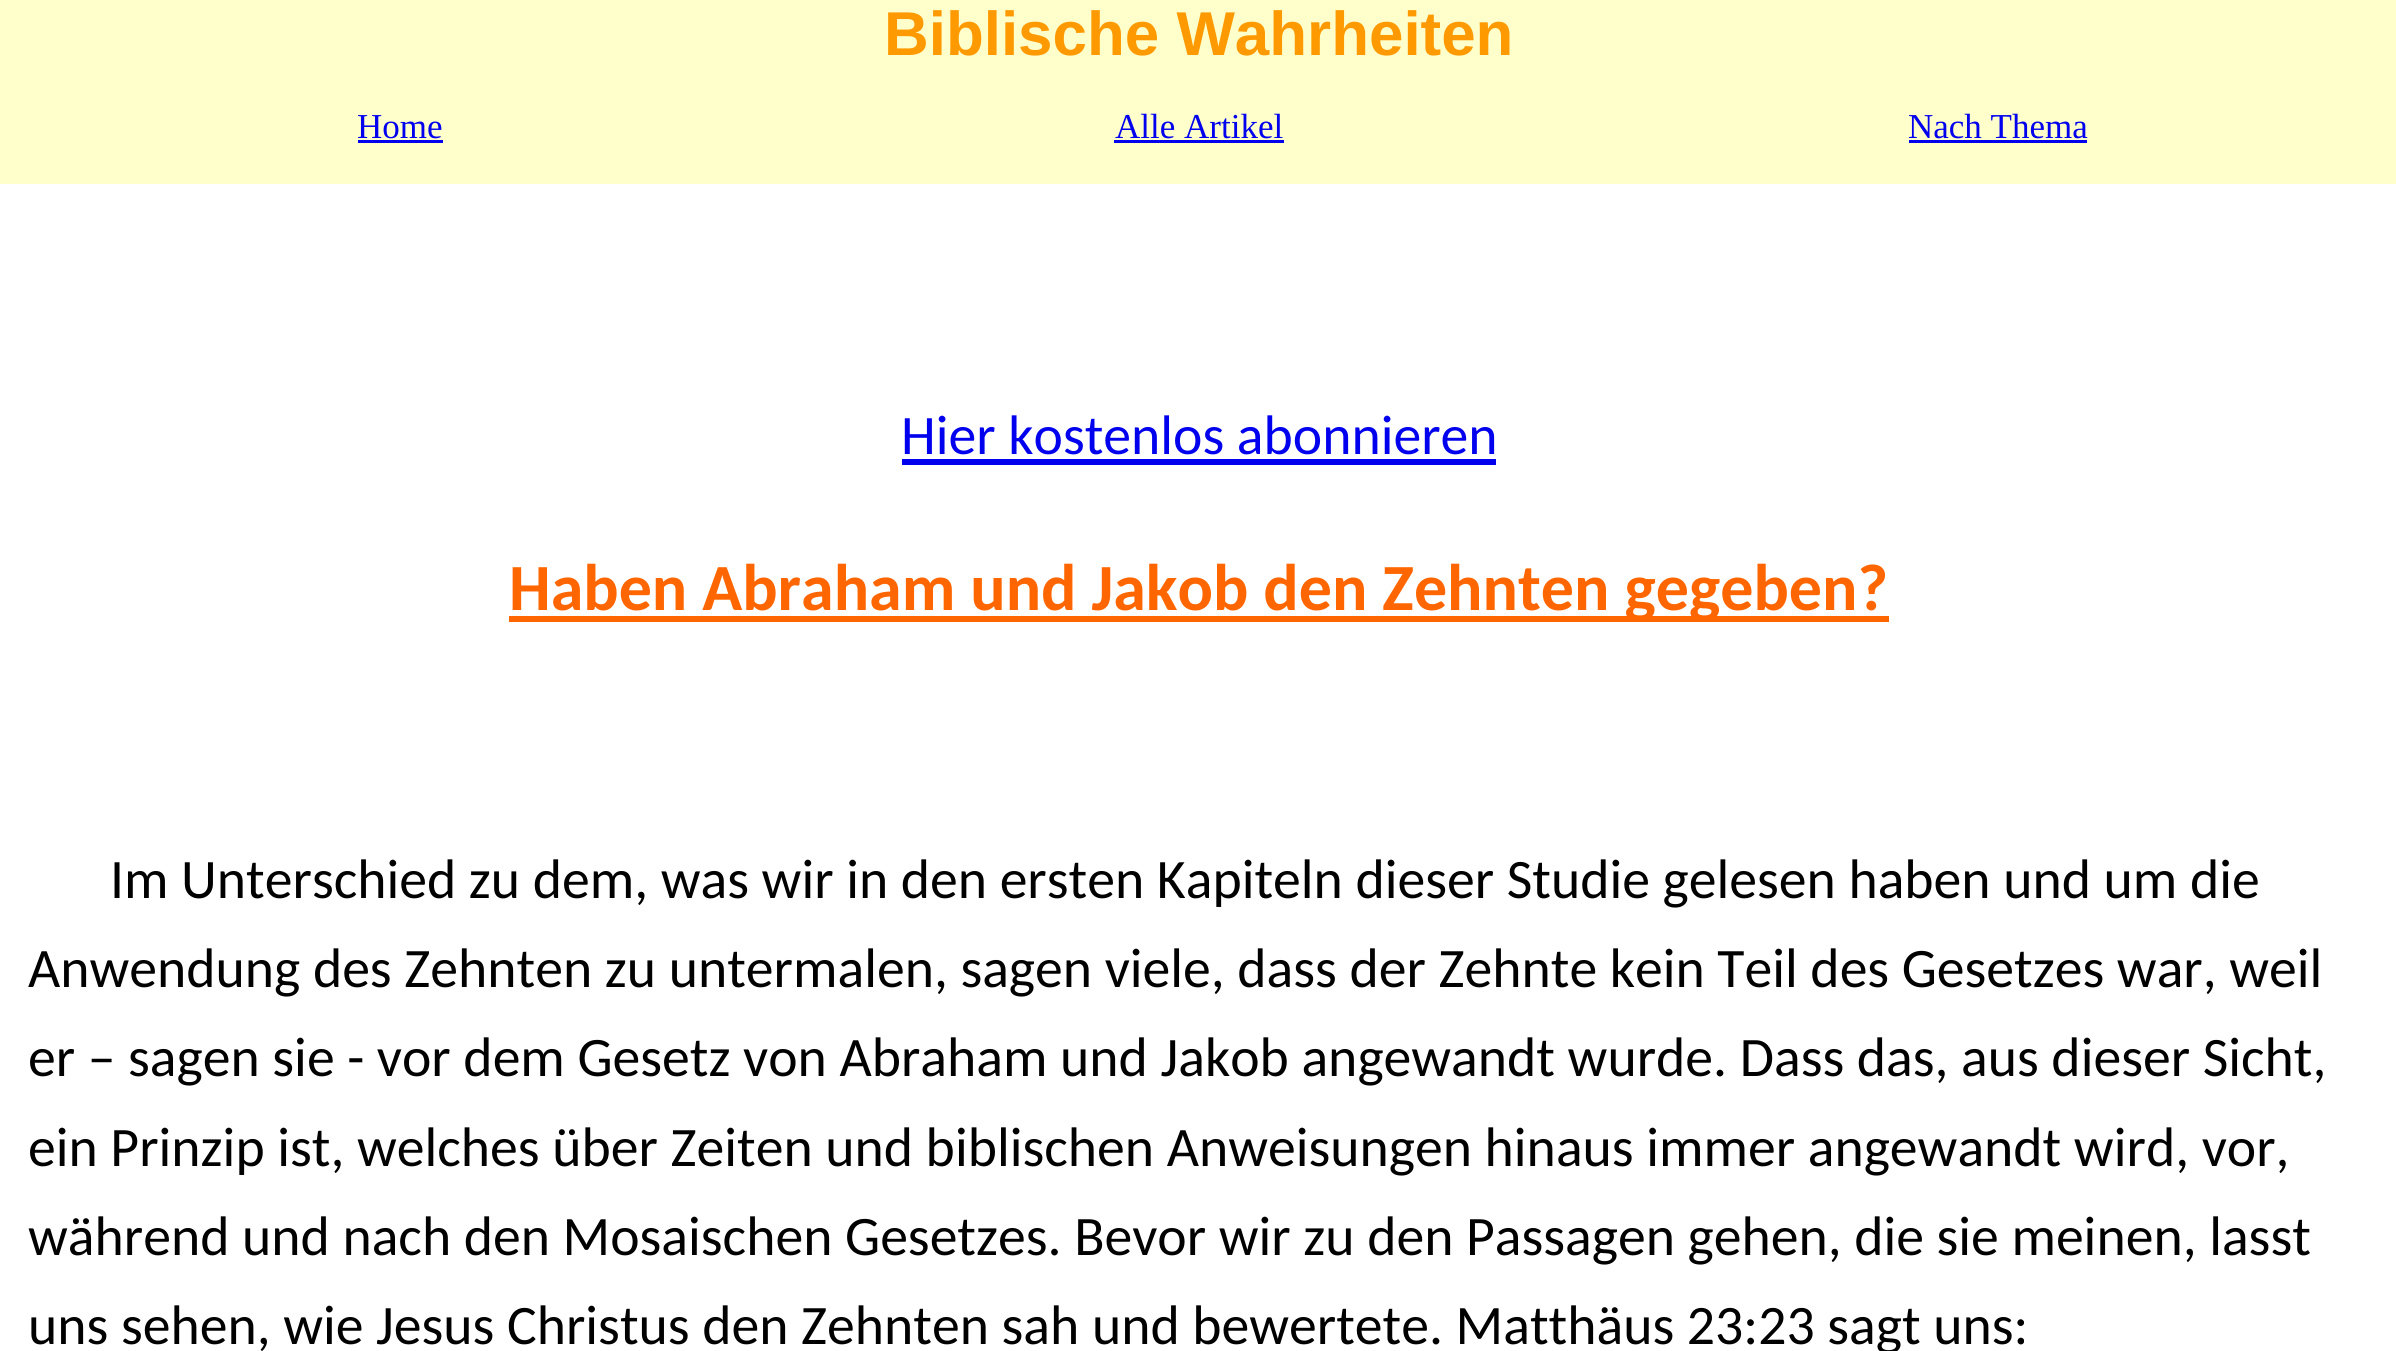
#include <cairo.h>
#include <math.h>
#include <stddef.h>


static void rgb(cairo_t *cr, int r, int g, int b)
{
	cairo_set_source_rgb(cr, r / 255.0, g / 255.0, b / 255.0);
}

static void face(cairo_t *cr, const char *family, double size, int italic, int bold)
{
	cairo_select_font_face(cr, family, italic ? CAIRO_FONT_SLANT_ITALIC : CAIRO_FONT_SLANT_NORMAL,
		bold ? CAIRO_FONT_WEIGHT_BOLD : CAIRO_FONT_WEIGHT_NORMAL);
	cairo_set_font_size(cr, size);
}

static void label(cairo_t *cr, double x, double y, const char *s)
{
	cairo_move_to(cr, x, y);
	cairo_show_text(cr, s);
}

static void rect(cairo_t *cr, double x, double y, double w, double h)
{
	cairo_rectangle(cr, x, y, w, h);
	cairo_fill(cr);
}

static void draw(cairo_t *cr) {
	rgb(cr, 255, 255, 255);
	cairo_paint(cr);
	rgb(cr, 255, 255, 204);
	rect(cr, 0, 0, 2396, 72);
	face(cr, "Liberation Sans", 61.9, 0, 1);
	rgb(cr, 255, 153, 0);
	label(cr, 884, 55, "Biblische Wahrheiten");
	rgb(cr, 255, 255, 204);
	rect(cr, 0, 72, 2396, 112);
	face(cr, "Liberation Serif", 35, 0, 0);
	rgb(cr, 0, 0, 238);
	label(cr, 357, 138, "Home");
	rect(cr, 358, 140, 85, 3);
	label(cr, 1115, 138, "Alle Artikel");
	rect(cr, 1114, 140, 170, 3);
	label(cr, 1908, 138, "Nach Thema");
	rect(cr, 1909, 140, 178, 3);
	face(cr, "Carlito", 55.7, 0, 0);
	label(cr, 901, 454, "Hier kostenlos abonnieren");
	rect(cr, 902, 459, 594, 6);
	rgb(cr, 255, 102, 0);
	rect(cr, 509, 616, 1380, 6);
	face(cr, "Carlito", 66, 0, 1);
	label(cr, 509, 610, "Haben Abraham und Jakob den Zehnten gegeben?");
	face(cr, "Carlito", 55.7, 0, 0);
	rgb(cr, 0, 0, 0);
	label(cr, 110, 898, "Im Unterschied zu dem, was wir in den ersten Kapiteln dieser Studie gelesen haben und um die");
	label(cr, 28, 987, "Anwendung des Zehnten zu untermalen, sagen viele, dass der Zehnte kein Teil des Gesetzes war, weil");
	label(cr, 28, 1076, "er – sagen sie - vor dem Gesetz von Abraham und Jakob angewandt wurde. Dass das, aus dieser Sicht,");
	label(cr, 28, 1166, "ein Prinzip ist, welches über Zeiten und biblischen Anweisungen hinaus immer angewandt wird, vor,");
	label(cr, 28, 1255, "während und nach den Mosaischen Gesetzes. Bevor wir zu den Passagen gehen, die sie meinen, lasst");
	label(cr, 28, 1344, "uns sehen, wie Jesus Christus den Zehnten sah und bewertete. Matthäus 23:23 sagt uns:");
}

int main(void) {
	cairo_surface_t *surface = cairo_image_surface_create(CAIRO_FORMAT_RGB24, 2396, 1351);
	cairo_t *cr = cairo_create(surface);
	cairo_font_options_t *options = cairo_font_options_create();
	cairo_font_options_set_hint_metrics(options, CAIRO_HINT_METRICS_OFF);
	cairo_font_options_set_hint_style(options, CAIRO_HINT_STYLE_NONE);
	cairo_set_font_options(cr, options);
	cairo_set_miter_limit(cr, 4);
	draw(cr);
	cairo_surface_write_to_png(surface, "render.png");
	cairo_font_options_destroy(options);
	cairo_destroy(cr);
	cairo_surface_destroy(surface);
	return 0;
}
